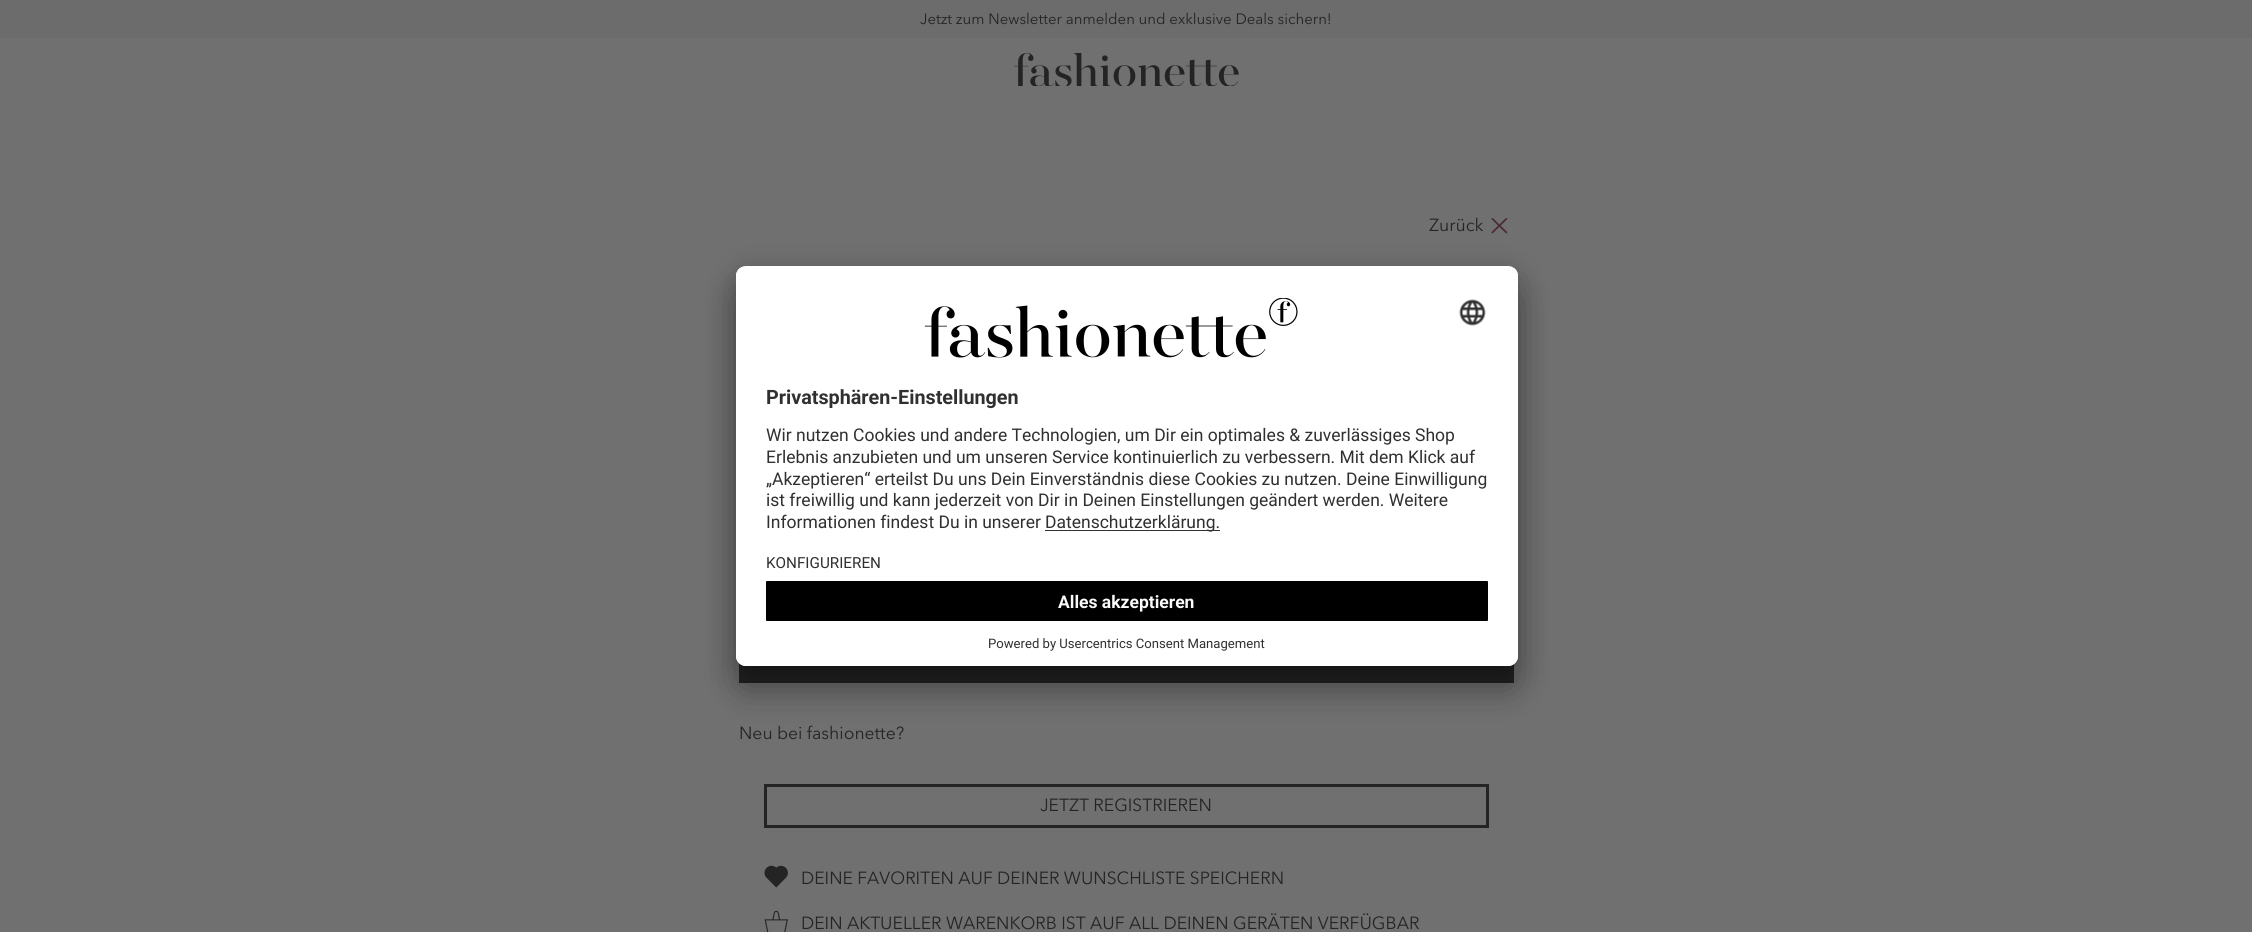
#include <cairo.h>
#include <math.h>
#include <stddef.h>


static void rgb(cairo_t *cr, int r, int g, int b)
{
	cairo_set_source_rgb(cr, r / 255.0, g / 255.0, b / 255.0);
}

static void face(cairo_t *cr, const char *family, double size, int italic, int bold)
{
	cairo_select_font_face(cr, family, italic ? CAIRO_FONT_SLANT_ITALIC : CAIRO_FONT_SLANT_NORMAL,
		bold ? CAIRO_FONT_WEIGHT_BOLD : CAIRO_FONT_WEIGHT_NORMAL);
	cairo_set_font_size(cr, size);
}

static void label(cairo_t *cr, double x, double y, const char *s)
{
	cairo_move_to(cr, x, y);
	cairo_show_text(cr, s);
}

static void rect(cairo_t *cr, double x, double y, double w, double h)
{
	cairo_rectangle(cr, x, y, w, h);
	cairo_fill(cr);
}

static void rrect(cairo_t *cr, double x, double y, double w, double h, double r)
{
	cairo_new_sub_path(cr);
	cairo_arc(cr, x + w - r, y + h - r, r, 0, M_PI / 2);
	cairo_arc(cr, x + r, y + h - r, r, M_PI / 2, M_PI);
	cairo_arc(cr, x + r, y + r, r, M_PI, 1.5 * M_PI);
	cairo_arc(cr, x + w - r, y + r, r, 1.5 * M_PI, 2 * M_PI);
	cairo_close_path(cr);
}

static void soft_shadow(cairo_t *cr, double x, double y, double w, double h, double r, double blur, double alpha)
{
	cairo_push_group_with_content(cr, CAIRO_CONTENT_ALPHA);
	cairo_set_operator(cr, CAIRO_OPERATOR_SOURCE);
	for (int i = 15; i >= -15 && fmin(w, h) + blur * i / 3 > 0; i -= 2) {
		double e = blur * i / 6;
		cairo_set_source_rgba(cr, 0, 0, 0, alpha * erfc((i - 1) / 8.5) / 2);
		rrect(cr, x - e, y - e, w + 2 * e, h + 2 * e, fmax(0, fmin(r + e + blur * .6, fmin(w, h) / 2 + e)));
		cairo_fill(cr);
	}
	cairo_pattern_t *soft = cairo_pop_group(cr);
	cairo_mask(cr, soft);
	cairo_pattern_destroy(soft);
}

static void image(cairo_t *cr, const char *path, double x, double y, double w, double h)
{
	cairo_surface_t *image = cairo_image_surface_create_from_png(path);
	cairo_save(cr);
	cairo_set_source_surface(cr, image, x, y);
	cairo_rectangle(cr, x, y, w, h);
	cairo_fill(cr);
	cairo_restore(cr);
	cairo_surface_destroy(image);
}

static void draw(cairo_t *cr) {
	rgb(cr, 112, 112, 112);
	cairo_paint(cr);
	rgb(cr, 108, 108, 108);
	rect(cr, 0, 0, 2252, 38);
	face(cr, "Avenir Next", 15, 0, 0);
	rgb(cr, 36, 36, 36);
	label(cr, 920, 24, "Jetzt zum Newsletter anmelden und exklusive Deals sichern!");
	image(cr, "image0.png", 1014, 53, 225, 33);
	face(cr, "Avenir Next", 17.5, 0, 0);
	label(cr, 1429, 231, "Zurück");
	image(cr, "image1.png", 1491, 218, 17, 16);
	rect(cr, 739, 663, 775, 20);
	label(cr, 739, 739, "Neu bei fashionette?");
	cairo_rectangle(cr, 765.5, 785.5, 722, 41);
	cairo_set_line_width(cr, 3);
	cairo_stroke(cr);
	label(cr, 1040, 811, "JETZT REGISTRIEREN");
	image(cr, "image2.png", 764, 865, 24, 23);
	label(cr, 801, 884, "DEINE FAVORITEN AUF DEINER WUNSCHLISTE SPEICHERN");
	image(cr, "image3.png", 764, 910, 24, 22);
	label(cr, 801, 929, "DEIN AKTUELLER WARENKORB IST AUF ALL DEINEN GERÄTEN VERFÜGBAR");
	rgb(cr, 0, 0, 0);
	soft_shadow(cr, 736, 291, 782, 400, 10, 17.5, 0.3);
	soft_shadow(cr, 736, 273, 782, 400, 10, 16, 0.22);
	rgb(cr, 255, 255, 255);
	rrect(cr, 736, 266, 782, 400, 10);
	cairo_fill(cr);
	cairo_save(cr);
	rrect(cr, 736, 266, 782, 400, 10);
	cairo_clip(cr);
	cairo_new_path(cr);
	cairo_move_to(cr, 746, 266);
	cairo_line_to(cr, 1508, 266);
	cairo_curve_to(cr, 1513.5, 266, 1518, 270.5, 1518, 276);
	cairo_line_to(cr, 1518, 571);
	cairo_line_to(cr, 736, 571);
	cairo_line_to(cr, 736, 276);
	cairo_curve_to(cr, 736, 270.5, 740.5, 266, 746, 266);
	cairo_close_path(cr);
	cairo_clip(cr);
	rect(cr, 736, 268, 782, 303);
	cairo_restore(cr);
	image(cr, "image4.png", 924, 298, 374, 60);
	image(cr, "image5.png", 1459, 299, 27, 27);
	face(cr, "Roboto", 19.75, 0, 1);
	rgb(cr, 48, 48, 48);
	label(cr, 766, 404, "Privatsphären-Einstellungen");
	face(cr, "Roboto", 17.5, 0, 0);
	label(cr, 766, 441, "Wir nutzen Cookies und andere Technologien, um Dir ein optimales & zuverlässiges Shop");
	label(cr, 766, 463, "Erlebnis anzubieten und um unseren Service kontinuierlich zu verbessern. Mit dem Klick auf");
	label(cr, 766, 485, "„Akzeptieren“ erteilst Du uns Dein Einverständnis diese Cookies zu nutzen. Deine Einwilligung");
	label(cr, 766, 506, "ist freiwillig und kann jederzeit von Dir in Deinen Einstellungen geändert werden. Weitere");
	label(cr, 766, 528, "Informationen findest Du in unserer");
	rect(cr, 1045, 530, 175, 1);
	label(cr, 1045, 528, "Datenschutzerklärung.");
	face(cr, "Roboto", 15.25, 0, 0);
	label(cr, 766, 568, "KONFIGURIEREN");
	rgb(cr, 255, 255, 255);
	cairo_new_path(cr);
	cairo_move_to(cr, 736, 571);
	cairo_line_to(cr, 1518, 571);
	cairo_line_to(cr, 1518, 656);
	cairo_curve_to(cr, 1518, 661.5, 1513.5, 666, 1508, 666);
	cairo_line_to(cr, 746, 666);
	cairo_curve_to(cr, 740.5, 666, 736, 661.5, 736, 656);
	cairo_close_path(cr);
	cairo_fill(cr);
	rgb(cr, 0, 0, 0);
	rrect(cr, 766, 581, 722, 40, 1);
	cairo_fill(cr);
	face(cr, "Roboto", 17.5, 0, 1);
	rgb(cr, 250, 250, 250);
	label(cr, 1058, 608, "Alles akzeptieren");
	face(cr, "Roboto", 13.1, 0, 0);
	rgb(cr, 48, 48, 48);
	label(cr, 988, 648, "Powered by Usercentrics Consent Management");
}

int main(void) {
	cairo_surface_t *surface = cairo_image_surface_create(CAIRO_FORMAT_RGB24, 2252, 932);
	cairo_t *cr = cairo_create(surface);
	cairo_font_options_t *options = cairo_font_options_create();
	cairo_font_options_set_hint_metrics(options, CAIRO_HINT_METRICS_OFF);
	cairo_font_options_set_hint_style(options, CAIRO_HINT_STYLE_NONE);
	cairo_set_font_options(cr, options);
	cairo_set_miter_limit(cr, 4);
	draw(cr);
	cairo_surface_write_to_png(surface, "render.png");
	cairo_font_options_destroy(options);
	cairo_destroy(cr);
	cairo_surface_destroy(surface);
	return 0;
}
